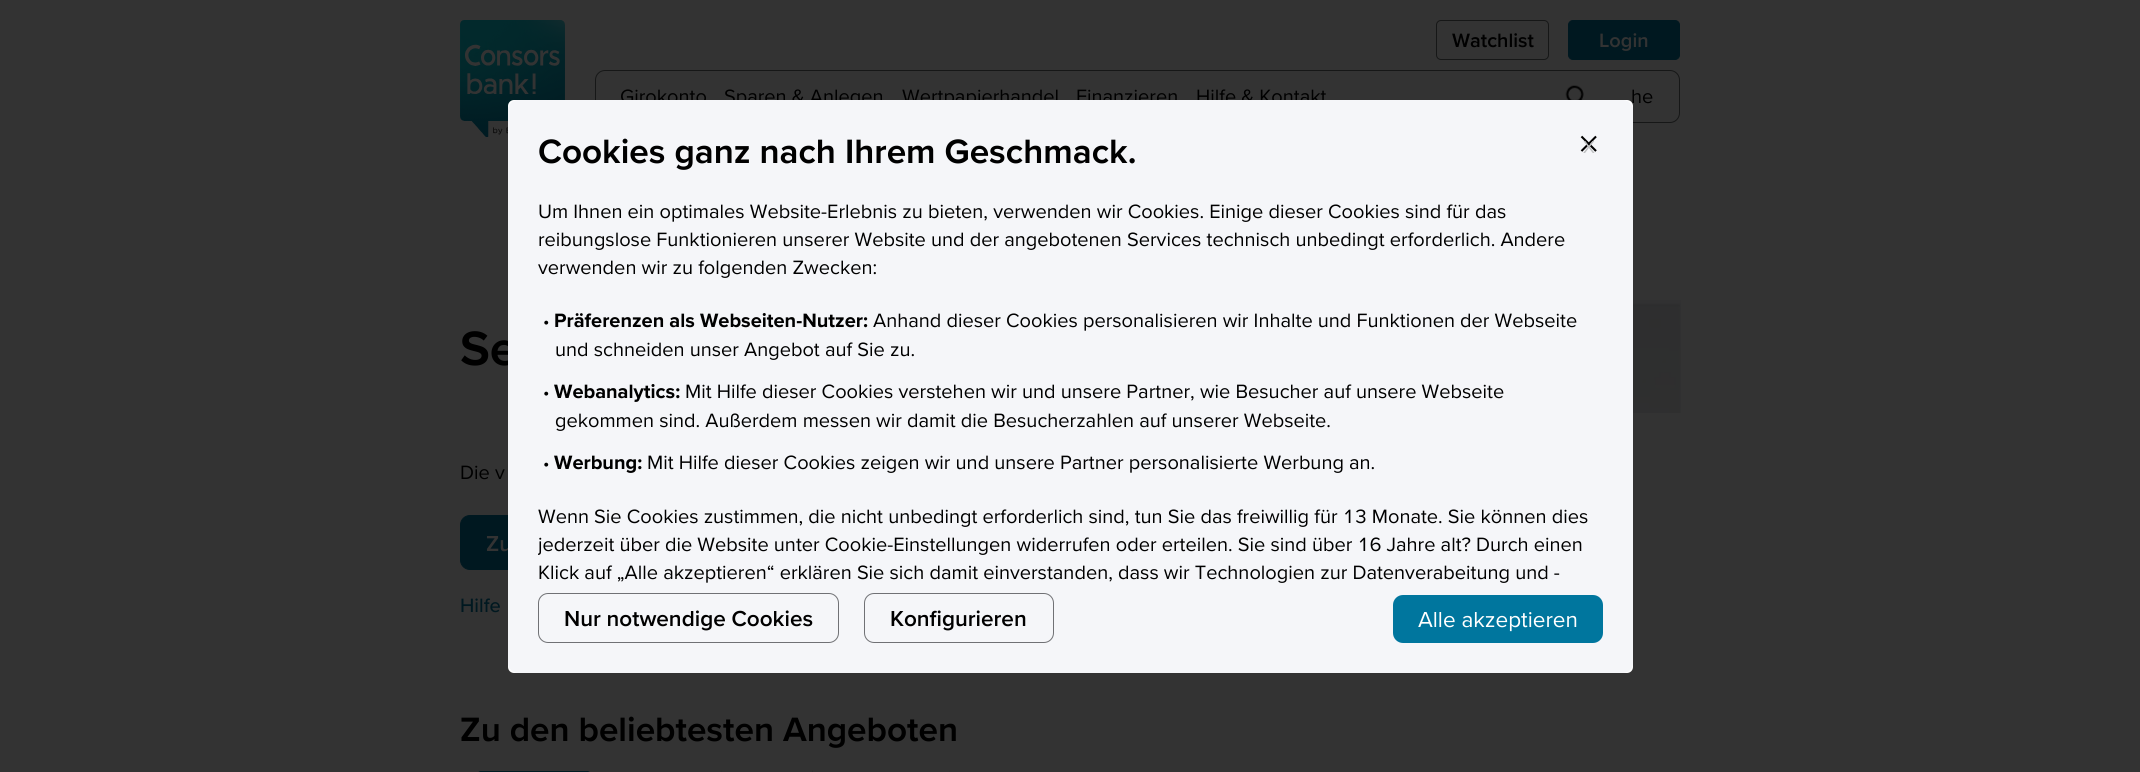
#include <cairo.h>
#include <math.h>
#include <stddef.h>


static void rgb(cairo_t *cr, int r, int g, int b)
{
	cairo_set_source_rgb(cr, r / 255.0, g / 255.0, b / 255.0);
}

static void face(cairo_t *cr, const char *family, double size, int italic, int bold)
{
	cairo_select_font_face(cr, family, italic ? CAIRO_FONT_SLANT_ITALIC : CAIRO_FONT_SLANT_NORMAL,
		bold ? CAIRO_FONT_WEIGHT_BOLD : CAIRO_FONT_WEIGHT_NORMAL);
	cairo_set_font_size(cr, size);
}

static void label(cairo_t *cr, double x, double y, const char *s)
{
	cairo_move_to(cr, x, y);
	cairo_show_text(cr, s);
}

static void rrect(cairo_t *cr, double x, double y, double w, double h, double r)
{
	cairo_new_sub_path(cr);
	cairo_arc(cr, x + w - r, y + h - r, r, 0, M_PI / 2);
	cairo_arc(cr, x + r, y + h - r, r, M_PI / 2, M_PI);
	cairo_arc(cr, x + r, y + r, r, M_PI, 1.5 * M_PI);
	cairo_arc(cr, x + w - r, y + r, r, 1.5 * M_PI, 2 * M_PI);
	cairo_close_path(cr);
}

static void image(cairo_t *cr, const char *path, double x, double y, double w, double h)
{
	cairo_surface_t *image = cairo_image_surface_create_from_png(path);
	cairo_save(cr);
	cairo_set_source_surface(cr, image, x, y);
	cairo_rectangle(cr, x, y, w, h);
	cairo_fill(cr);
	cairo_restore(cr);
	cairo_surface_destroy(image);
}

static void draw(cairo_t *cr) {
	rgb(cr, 51, 51, 51);
	cairo_paint(cr);
	image(cr, "image0.png", 460, 20, 105, 117);
	rrect(cr, 1436.5, 20.5, 112, 39, 4.5);
	rgb(cr, 22, 23, 23);
	cairo_set_line_width(cr, 1);
	cairo_stroke(cr);
	face(cr, "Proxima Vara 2 SemiBold", 20, 0, 0);
	rgb(cr, 0, 0, 0);
	label(cr, 1452, 47, "Watchlist");
	rgb(cr, 0, 24, 32);
	rrect(cr, 1568.5, 20.5, 111, 39, 4.5);
	cairo_fill_preserve(cr);
	cairo_stroke(cr);
	rgb(cr, 51, 51, 51);
	label(cr, 1599, 47, "Login");
	rrect(cr, 595.5, 70.5, 1084, 52, 9.5);
	rgb(cr, 22, 23, 23);
	cairo_stroke(cr);
	face(cr, "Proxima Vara", 20, 0, 0);
	rgb(cr, 0, 0, 0);
	label(cr, 620, 103, "Girokonto");
	label(cr, 724, 103, "Sparen & Anlegen");
	label(cr, 902, 103, "Wertpapierhandel");
	label(cr, 1076, 103, "Finanzieren");
	label(cr, 1196, 103, "Hilfe & Kontakt");
	image(cr, "image1.png", 1565, 85, 19, 15);
	label(cr, 1631, 103, "he");
	face(cr, "Proxima Vara SemiBold", 50, 0, 0);
	label(cr, 460, 365, "Se");
	image(cr, "image2.png", 1633, 300, 48, 113);
	rgb(cr, 0, 24, 32);
	rrect(cr, 460.5, 515.5, 219, 54, 9.5);
	cairo_fill_preserve(cr);
	cairo_stroke(cr);
	face(cr, "Proxima Vara 2 SemiBold", 22.5, 0, 0);
	rgb(cr, 51, 51, 51);
	label(cr, 486, 551, "Zu");
	rgb(cr, 255, 255, 255);
	rrect(cr, 508, 100, 1125, 573, 6);
	cairo_fill(cr);
	rgb(cr, 245, 246, 249);
	cairo_new_path(cr);
	cairo_move_to(cr, 518, 100);
	cairo_line_to(cr, 1623, 100);
	cairo_curve_to(cr, 1628.5, 100, 1633, 104.5, 1633, 110);
	cairo_line_to(cr, 1633, 593);
	cairo_line_to(cr, 508, 593);
	cairo_line_to(cr, 508, 110);
	cairo_curve_to(cr, 508, 104.5, 512.5, 100, 518, 100);
	cairo_close_path(cr);
	cairo_fill(cr);
	face(cr, "Proxima Vara SemiBold", 35, 0, 0);
	rgb(cr, 0, 0, 0);
	label(cr, 538, 163, "Cookies ganz nach Ihrem Geschmack.");
	face(cr, "Proxima Vara", 20, 0, 0);
	label(cr, 538, 218, "Um Ihnen ein optimales Website-Erlebnis zu bieten, verwenden wir Cookies. Einige dieser Cookies sind für das");
	label(cr, 538, 246, "reibungslose Funktionieren unserer Website und der angebotenen Services technisch unbedingt erforderlich. Andere");
	label(cr, 538, 274, "verwenden wir zu folgenden Zwecken:");
	face(cr, "Proxima Vara", 18, 0, 0);
	label(cr, 543, 327, "•");
	face(cr, "Proxima Vara", 20, 0, 1);
	label(cr, 554, 327, "Präferenzen als Webseiten-Nutzer:");
	face(cr, "Proxima Vara", 20, 0, 0);
	label(cr, 873, 327, "Anhand dieser Cookies personalisieren wir Inhalte und Funktionen der Webseite");
	label(cr, 555, 356, "und schneiden unser Angebot auf Sie zu.");
	face(cr, "Proxima Vara", 18, 0, 0);
	label(cr, 543, 398, "•");
	face(cr, "Proxima Vara", 20, 0, 1);
	label(cr, 554, 398, "Webanalytics:");
	face(cr, "Proxima Vara", 20, 0, 0);
	label(cr, 685, 398, "Mit Hilfe dieser Cookies verstehen wir und unsere Partner, wie Besucher auf unsere Webseite");
	label(cr, 555, 427, "gekommen sind. Außerdem messen wir damit die Besucherzahlen auf unserer Webseite.");
	face(cr, "Proxima Vara", 18, 0, 0);
	label(cr, 543, 469, "•");
	face(cr, "Proxima Vara", 20, 0, 1);
	label(cr, 554, 469, "Werbung:");
	face(cr, "Proxima Vara", 20, 0, 0);
	label(cr, 647, 469, "Mit Hilfe dieser Cookies zeigen wir und unsere Partner personalisierte Werbung an.");
	label(cr, 538, 523, "Wenn Sie Cookies zustimmen, die nicht unbedingt erforderlich sind, tun Sie das freiwillig für 13 Monate. Sie können dies");
	cairo_save(cr);
	cairo_rectangle(cr, 538, 130, 1065, 484);
	cairo_clip(cr);
	label(cr, 538, 551, "jederzeit über die Website unter Cookie-Einstellungen widerrufen oder erteilen. Sie sind über 16 Jahre alt? Durch einen");
	cairo_restore(cr);
	label(cr, 538, 579, "Klick auf „Alle akzeptieren“ erklären Sie sich damit einverstanden, dass wir Technologien zur Datenverabeitung und -");
	rgb(cr, 245, 246, 249);
	cairo_new_path(cr);
	cairo_move_to(cr, 508, 593);
	cairo_line_to(cr, 1633, 593);
	cairo_line_to(cr, 1633, 663);
	cairo_curve_to(cr, 1633, 668.5, 1628.5, 673, 1623, 673);
	cairo_line_to(cr, 518, 673);
	cairo_curve_to(cr, 512.5, 673, 508, 668.5, 508, 663);
	cairo_close_path(cr);
	cairo_fill(cr);
	image(cr, "image3.png", 1580, 135, 17, 17);
	face(cr, "Proxima Vara", 18, 0, 0);
	rgb(cr, 190, 191, 193);
	label(cr, 1583, 153, "X");
	rrect(cr, 538.5, 593.5, 300, 49, 9.5);
	rgb(cr, 112, 113, 117);
	cairo_stroke(cr);
	face(cr, "Proxima Vara 2 SemiBold", 22.5, 0, 0);
	rgb(cr, 0, 0, 0);
	label(cr, 564, 626, "Nur notwendige Cookies");
	rrect(cr, 864.5, 593.5, 189, 49, 9.5);
	rgb(cr, 112, 113, 117);
	cairo_stroke(cr);
	rgb(cr, 0, 0, 0);
	label(cr, 890, 626, "Konfigurieren");
	rgb(cr, 0, 118, 158);
	rrect(cr, 1393, 595, 210, 48, 10);
	cairo_fill(cr);
	face(cr, "Proxima Vara", 22.5, 0, 0);
	rgb(cr, 255, 255, 255);
	label(cr, 1418, 627, "Alle akzeptieren");
	face(cr, "Proxima Vara", 20, 0, 0);
	rgb(cr, 0, 0, 0);
	label(cr, 460, 479, "Die v");
	face(cr, "Proxima Vara Medium", 20, 0, 0);
	rgb(cr, 0, 24, 32);
	label(cr, 460, 612, "Hilfe");
	face(cr, "Proxima Vara SemiBold", 35, 0, 0);
	rgb(cr, 0, 0, 0);
	label(cr, 460, 741, "Zu den beliebtesten Angeboten");
	rgb(cr, 0, 26, 33);
	cairo_new_path(cr);
	cairo_move_to(cr, 482, 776);
	cairo_curve_to(cr, 480, 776, 478, 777, 477, 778);
	cairo_line_to(cr, 476, 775);
	cairo_curve_to(cr, 477, 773, 478, 772, 480, 771);
	cairo_line_to(cr, 588, 771);
	cairo_curve_to(cr, 590, 772, 592, 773, 593, 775);
	cairo_line_to(cr, 592, 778);
	cairo_curve_to(cr, 592, 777, 590, 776, 586, 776);
	cairo_close_path(cr);
	cairo_fill(cr);
	rgb(cr, 42, 42, 42);
	cairo_new_path(cr);
	cairo_move_to(cr, 721, 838);
	cairo_line_to(cr, 721, 770);
	cairo_line_to(cr, 722, 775);
	cairo_line_to(cr, 722, 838);
	cairo_close_path(cr);
	cairo_fill(cr);
	cairo_new_path(cr);
	cairo_move_to(cr, 812, 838);
	cairo_line_to(cr, 812, 770);
	cairo_line_to(cr, 814, 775);
	cairo_line_to(cr, 814, 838);
	cairo_close_path(cr);
	cairo_fill(cr);
	cairo_new_path(cr);
	cairo_move_to(cr, 949, 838);
	cairo_line_to(cr, 949, 770);
	cairo_line_to(cr, 950, 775);
	cairo_line_to(cr, 950, 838);
	cairo_close_path(cr);
	cairo_fill(cr);
}

int main(void) {
	cairo_surface_t *surface = cairo_image_surface_create(CAIRO_FORMAT_RGB24, 2140, 772);
	cairo_t *cr = cairo_create(surface);
	cairo_font_options_t *options = cairo_font_options_create();
	cairo_font_options_set_hint_metrics(options, CAIRO_HINT_METRICS_OFF);
	cairo_font_options_set_hint_style(options, CAIRO_HINT_STYLE_NONE);
	cairo_set_font_options(cr, options);
	cairo_set_miter_limit(cr, 4);
	draw(cr);
	cairo_surface_write_to_png(surface, "render.png");
	cairo_font_options_destroy(options);
	cairo_destroy(cr);
	cairo_surface_destroy(surface);
	return 0;
}
